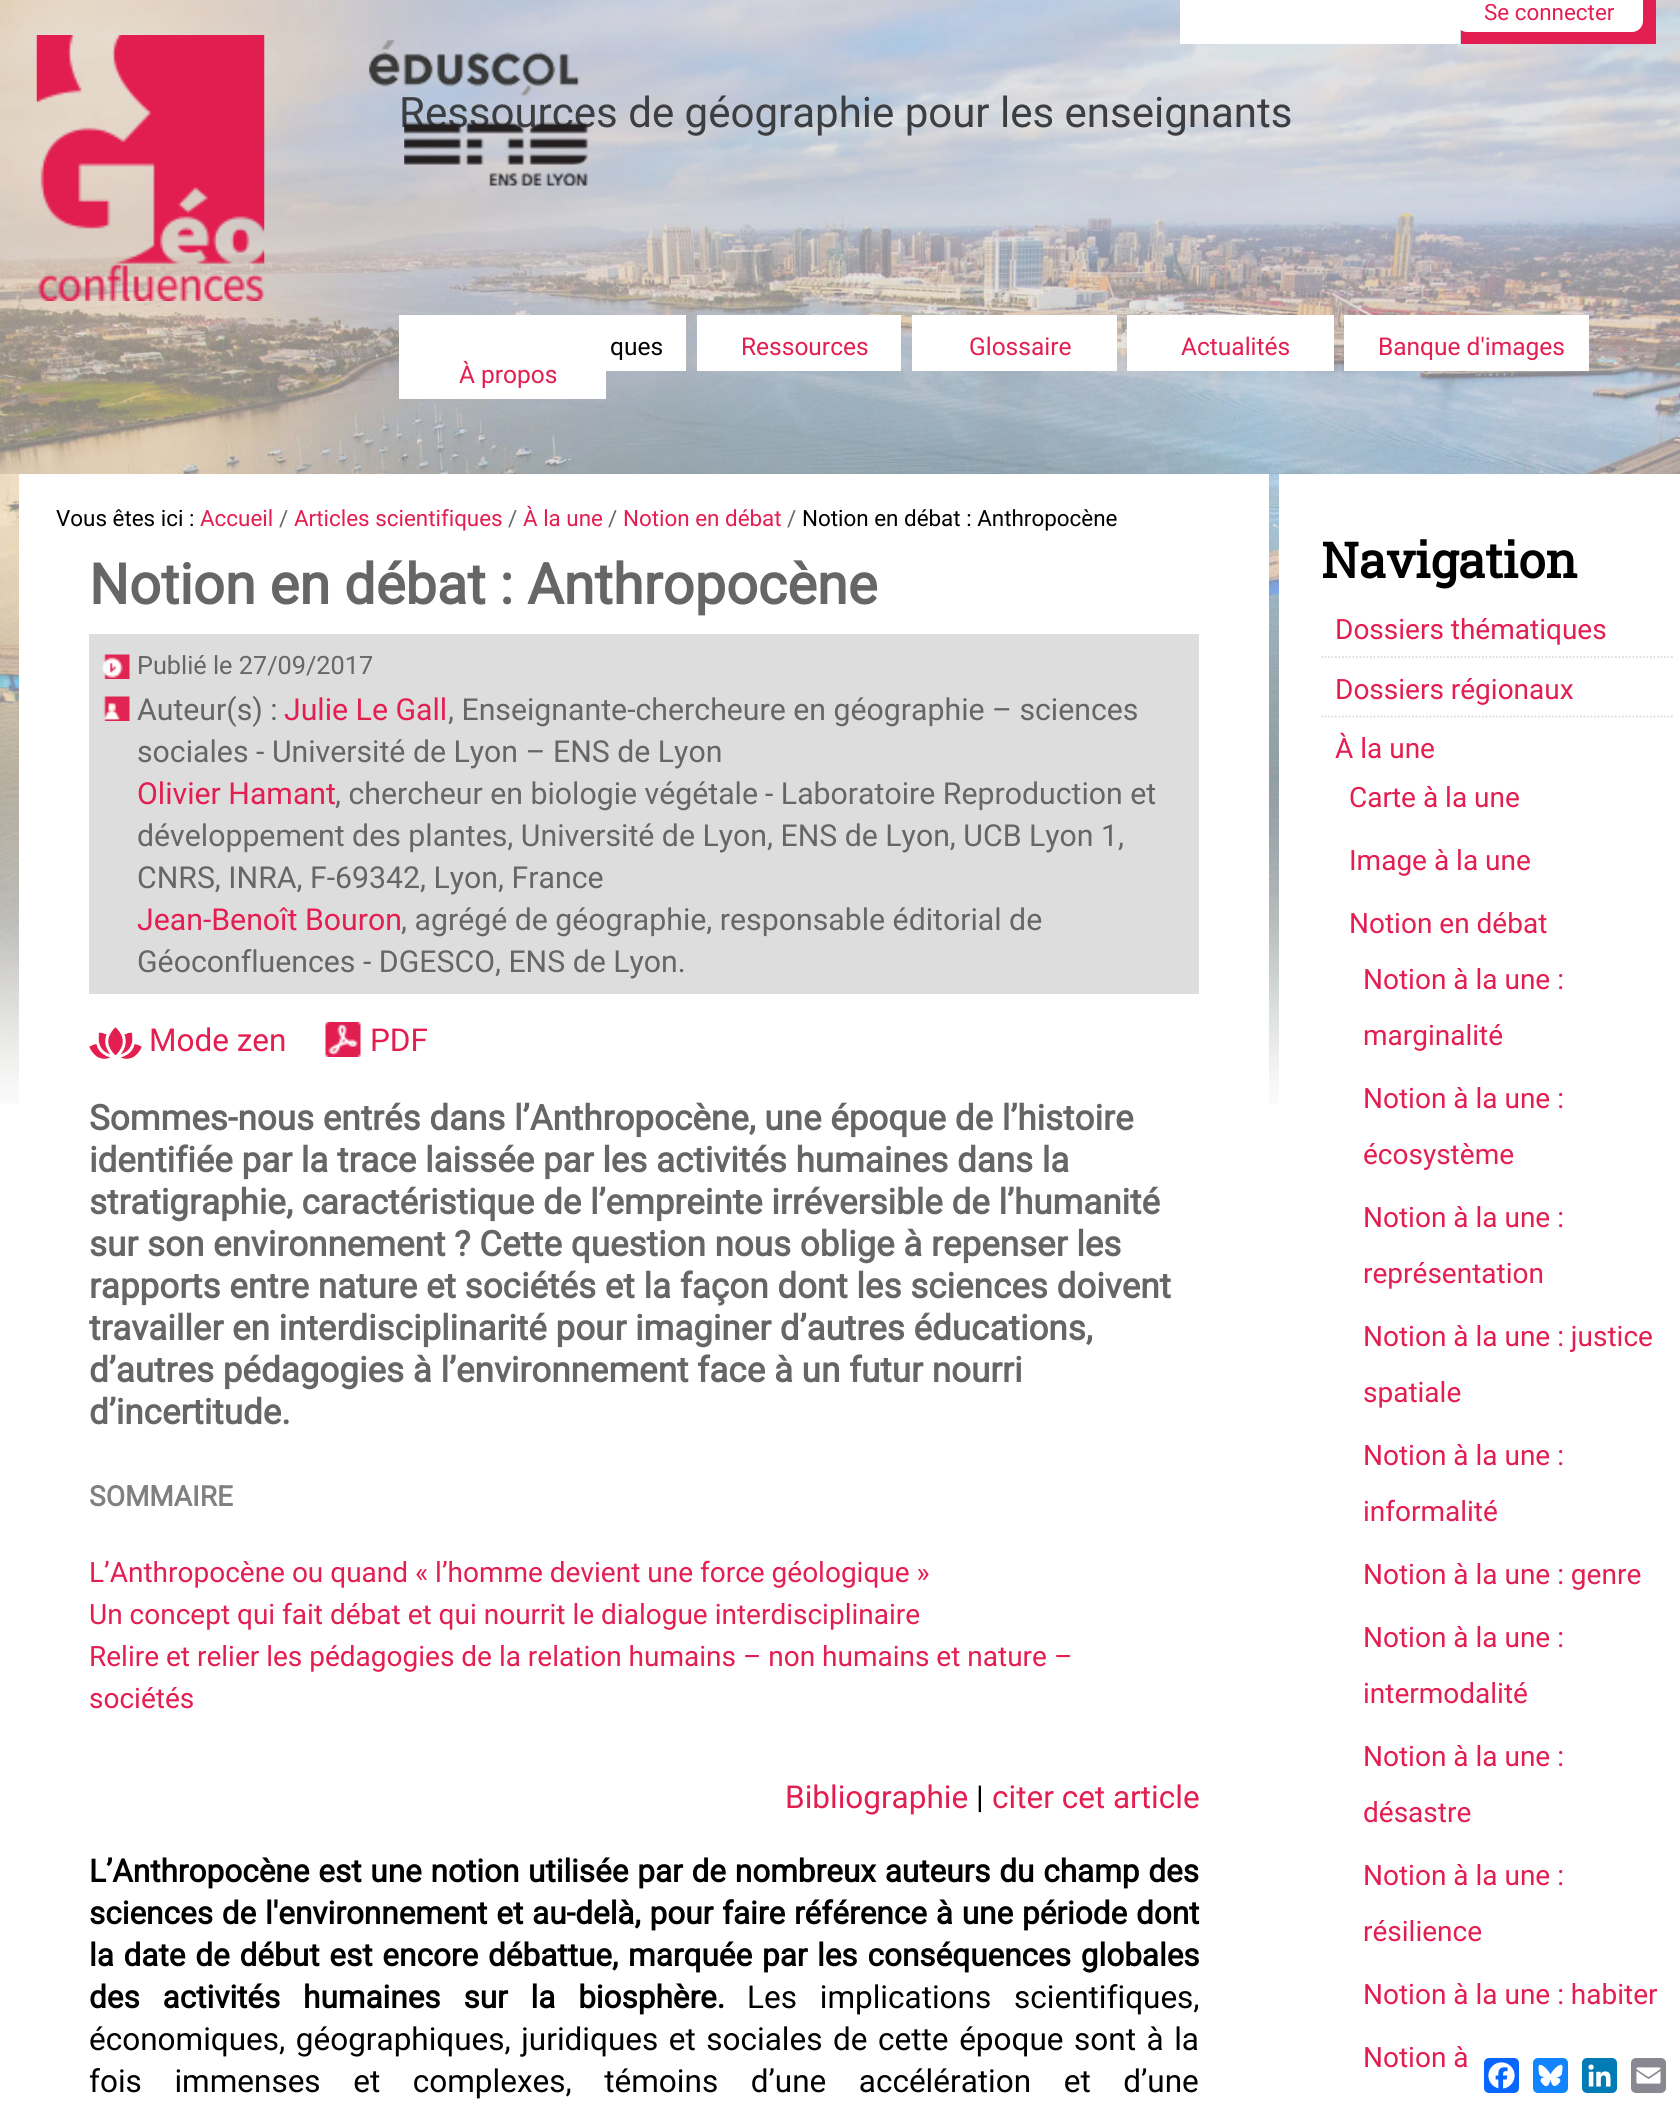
#include <cairo.h>
#include <math.h>
#include <stddef.h>


static void rgb(cairo_t *cr, int r, int g, int b)
{
	cairo_set_source_rgb(cr, r / 255.0, g / 255.0, b / 255.0);
}

static void face(cairo_t *cr, const char *family, double size, int italic, int bold)
{
	cairo_select_font_face(cr, family, italic ? CAIRO_FONT_SLANT_ITALIC : CAIRO_FONT_SLANT_NORMAL,
		bold ? CAIRO_FONT_WEIGHT_BOLD : CAIRO_FONT_WEIGHT_NORMAL);
	cairo_set_font_size(cr, size);
}

static void label(cairo_t *cr, double x, double y, const char *s)
{
	cairo_move_to(cr, x, y);
	cairo_show_text(cr, s);
}

static void tracked(cairo_t *cr, double x, double y, const char *s, double letter, double word)
{
	cairo_move_to(cr, x, y);
	while (*s) {
		char ch[5] = {0};
		int n = 0;
		do ch[n++] = *s++; while ((*s & 0xC0) == 0x80);
		cairo_show_text(cr, ch);
		cairo_rel_move_to(cr, letter + word * (*ch == ' '), 0);
	}
}

static void rect(cairo_t *cr, double x, double y, double w, double h)
{
	cairo_rectangle(cr, x, y, w, h);
	cairo_fill(cr);
}

static void rrect(cairo_t *cr, double x, double y, double w, double h, double r)
{
	cairo_new_sub_path(cr);
	cairo_arc(cr, x + w - r, y + h - r, r, 0, M_PI / 2);
	cairo_arc(cr, x + r, y + h - r, r, M_PI / 2, M_PI);
	cairo_arc(cr, x + r, y + r, r, M_PI, 1.5 * M_PI);
	cairo_arc(cr, x + w - r, y + r, r, 1.5 * M_PI, 2 * M_PI);
	cairo_close_path(cr);
}

static void image(cairo_t *cr, const char *path, double x, double y, double w, double h)
{
	cairo_surface_t *image = cairo_image_surface_create_from_png(path);
	cairo_save(cr);
	cairo_set_source_surface(cr, image, x, y);
	cairo_rectangle(cr, x, y, w, h);
	cairo_fill(cr);
	cairo_restore(cr);
	cairo_surface_destroy(image);
}

static void draw(cairo_t *cr) {
	rgb(cr, 255, 255, 255);
	cairo_paint(cr);
	image(cr, "image0.png", 0, 0, 1680, 1104);
	cairo_set_source_rgba(cr, 0, 0, 0, 0.1);
	rect(cr, 0, 0, 1680, 474);
	rgb(cr, 255, 255, 255);
	rect(cr, 1180, 0, 280, 44);
	rgb(cr, 227, 30, 81);
	rect(cr, 1461, 0, 195, 44);
	rgb(cr, 255, 255, 255);
	cairo_new_path(cr);
	cairo_move_to(cr, 1456, -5);
	cairo_line_to(cr, 1643, -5);
	cairo_line_to(cr, 1643, 21);
	cairo_curve_to(cr, 1643, 27, 1638, 32, 1632, 32);
	cairo_line_to(cr, 1467, 32);
	cairo_curve_to(cr, 1461, 32, 1456, 27, 1456, 21);
	cairo_close_path(cr);
	cairo_fill(cr);
	face(cr, "Roboto", 22.4, 0, 0);
	rgb(cr, 227, 30, 81);
	label(cr, 1484, 20, "Se connecter");
	image(cr, "image1.png", 36, 35, 229, 266);
	face(cr, "Roboto", 42, 0, 0);
	rgb(cr, 61, 62, 65);
	label(cr, 399, 127, "Ressources de géographie pour les enseignants");
	image(cr, "image2.png", 369, 40, 211, 57);
	image(cr, "image3.png", 404, 122, 184, 64);
	rgb(cr, 255, 255, 255);
	rect(cr, 399, 315, 287, 56);
	face(cr, "Roboto", 24.5, 0, 0);
	rgb(cr, 0, 0, 0);
	label(cr, 610, 355, "ques");
	rgb(cr, 255, 255, 255);
	rect(cr, 697, 315, 204, 56);
	rgb(cr, 227, 30, 81);
	label(cr, 741, 355, "Ressources");
	rgb(cr, 255, 255, 255);
	rect(cr, 912, 315, 205, 56);
	rgb(cr, 227, 30, 81);
	label(cr, 969, 355, "Glossaire");
	rgb(cr, 255, 255, 255);
	rect(cr, 1127, 315, 207, 56);
	rgb(cr, 227, 30, 81);
	label(cr, 1181, 355, "Actualités");
	rgb(cr, 255, 255, 255);
	rect(cr, 1344, 315, 245, 56);
	rgb(cr, 227, 30, 81);
	label(cr, 1378, 355, "Banque d'images");
	rgb(cr, 255, 255, 255);
	rect(cr, 399, 371, 207, 28);
	rgb(cr, 227, 30, 81);
	label(cr, 459, 383, "À propos");
	rgb(cr, 255, 255, 255);
	rect(cr, 19, 474, 1250, 630);
	face(cr, "Roboto", 22.4, 0, 0);
	rgb(cr, 0, 0, 0);
	label(cr, 56, 526, "Vous êtes ici :");
	rgb(cr, 227, 30, 81);
	label(cr, 200, 526, "Accueil");
	rgb(cr, 102, 102, 102);
	label(cr, 279, 526, "/");
	rgb(cr, 227, 30, 81);
	label(cr, 294, 526, "Articles scientifiques");
	rgb(cr, 102, 102, 102);
	label(cr, 508, 526, "/");
	rgb(cr, 227, 30, 81);
	label(cr, 523, 526, "À la une");
	rgb(cr, 102, 102, 102);
	label(cr, 608, 526, "/");
	rgb(cr, 227, 30, 81);
	label(cr, 623, 526, "Notion en débat");
	rgb(cr, 102, 102, 102);
	label(cr, 787, 526, "/");
	rgb(cr, 0, 0, 0);
	label(cr, 802, 526, "Notion en débat : Anthropocène");
	face(cr, "Roboto", 56, 0, 1);
	rgb(cr, 102, 102, 102);
	label(cr, 89, 604, "Notion en débat : Anthropocène");
	rgb(cr, 221, 221, 221);
	rect(cr, 89, 634, 1110, 360);
	image(cr, "image4.png", 101, 654, 29, 25);
	face(cr, "Roboto", 25.25, 0, 0);
	rgb(cr, 102, 102, 102);
	label(cr, 137, 674, "Publié le 27/09/2017");
	image(cr, "image5.png", 103, 696, 27, 25);
	face(cr, "Roboto", 30.25, 0, 0);
	label(cr, 137, 720, "Auteur(s) :");
	rgb(cr, 227, 30, 81);
	label(cr, 284, 720, "Julie Le Gall");
	rgb(cr, 102, 102, 102);
	label(cr, 448, 720, ", Enseignante-chercheure en géographie – sciences");
	label(cr, 137, 762, "sociales - Université de Lyon – ENS de Lyon");
	rgb(cr, 227, 30, 81);
	label(cr, 137, 804, "Olivier Hamant");
	rgb(cr, 102, 102, 102);
	label(cr, 335, 804, ", chercheur en biologie végétale");
	label(cr, 765, 804, "- Laboratoire Reproduction et");
	label(cr, 137, 846, "développement des plantes, Université de Lyon, ENS de Lyon, UCB Lyon 1,");
	label(cr, 137, 888, "CNRS, INRA, F-69342, Lyon, France");
	rgb(cr, 227, 30, 81);
	label(cr, 137, 930, "Jean-Benoît Bouron");
	rgb(cr, 102, 102, 102);
	label(cr, 401, 930, ", agrégé de géographie, responsable éditorial de");
	label(cr, 137, 972, "Géoconfluences - DGESCO, ENS de Lyon.");
	image(cr, "image6.png", 89, 1027, 53, 32);
	face(cr, "Roboto", 31.5, 0, 0);
	rgb(cr, 227, 30, 81);
	label(cr, 149, 1051, "Mode zen");
	image(cr, "image7.png", 325, 1022, 36, 35);
	label(cr, 370, 1051, "PDF");
	face(cr, "Roboto", 35, 0, 1);
	rgb(cr, 102, 102, 102);
	label(cr, 89, 1130, "Sommes-nous entrés dans l’Anthropocène, une époque de l’histoire");
	label(cr, 89, 1172, "identifiée par la trace laissée par les activités humaines dans la");
	label(cr, 89, 1214, "stratigraphie, caractéristique de l’empreinte irréversible de l’humanité");
	label(cr, 89, 1256, "sur son environnement ? Cette question nous oblige à repenser les");
	label(cr, 89, 1298, "rapports entre nature et sociétés et la façon dont les sciences doivent");
	label(cr, 89, 1340, "travailler en interdisciplinarité pour imaginer d’autres éducations,");
	label(cr, 89, 1382, "d’autres pédagogies à l’environnement face à un futur nourri");
	label(cr, 89, 1424, "d’incertitude.");
	face(cr, "Roboto", 28, 0, 1);
	rgb(cr, 128, 128, 128);
	label(cr, 89, 1506, "SOMMAIRE");
	face(cr, "Roboto", 28, 0, 0);
	rgb(cr, 227, 30, 81);
	label(cr, 89, 1582, "L’Anthropocène ou quand « l’homme devient une force géologique »");
	label(cr, 89, 1624, "Un concept qui fait débat et qui nourrit le dialogue interdisciplinaire");
	label(cr, 89, 1666, "Relire et relier les pédagogies de la relation humains – non humains et nature –");
	label(cr, 89, 1708, "sociétés");
	face(cr, "Roboto", 31.5, 0, 0);
	label(cr, 785, 1808, "Bibliographie");
	rgb(cr, 0, 0, 0);
	label(cr, 976, 1808, "|");
	rgb(cr, 227, 30, 81);
	label(cr, 992, 1808, "citer cet article");
	face(cr, "Roboto", 31.5, 0, 1);
	rgb(cr, 0, 0, 0);
	tracked(cr, 89, 1882, "L’Anthropocène est une notion utilisée par de nombreux auteurs du champ des", 0, 1);
	tracked(cr, 89, 1924, "sciences de l'environnement et au-delà, pour faire référence à une période dont", 0, 1);
	tracked(cr, 89, 1966, "la date de début est encore débattue, marquée par", 0, 2);
	tracked(cr, 817, 1966, "les conséquences globales", 0, 2);
	tracked(cr, 89, 2008, "des activités humaines sur la biosphère.", 0, 15);
	face(cr, "Roboto", 31.5, 0, 0);
	tracked(cr, 747, 2008, "Les implications scientifiques,", 0, 15);
	tracked(cr, 89, 2050, "économiques, géographiques, juridiques et sociales de cette époque sont à la", 0, 2.75);
	tracked(cr, 89, 2092, "fois immenses et complexes, témoins d’une accélération et d’une", 0, 24.75);
	rgb(cr, 8, 102, 255);
	rrect(cr, 1484, 2058, 35, 35, 5);
	cairo_fill(cr);
	image(cr, "image8.png", 1488, 2062, 27, 27);
	rgb(cr, 18, 133, 254);
	rrect(cr, 1533, 2058, 35, 35, 5);
	cairo_fill(cr);
	image(cr, "image9.png", 1538, 2064, 25, 23);
	rgb(cr, 0, 123, 181);
	rrect(cr, 1582, 2058, 35, 35, 5);
	cairo_fill(cr);
	image(cr, "image10.png", 1588, 2064, 23, 23);
	rgb(cr, 136, 137, 144);
	rrect(cr, 1631, 2058, 35, 35, 5);
	cairo_fill(cr);
	image(cr, "image11.png", 1636, 2067, 25, 17);
	rgb(cr, 255, 255, 255);
	rect(cr, 1279, 474, 401, 630);
	face(cr, "Roboto Slab", 49, 0, 1);
	rgb(cr, 0, 0, 0);
	label(cr, 1321, 578, "Navigation");
	cairo_new_path(cr);
	cairo_move_to(cr, 1321, 657);
	cairo_line_to(cr, 1673, 657);
	rgb(cr, 221, 221, 221);
	cairo_set_line_width(cr, 1.8);
	cairo_set_dash(cr, (double[]){1.75, 1.75}, 2, 0);
	cairo_stroke(cr);
	face(cr, "Roboto", 28, 0, 0);
	rgb(cr, 227, 30, 81);
	label(cr, 1335, 639, "Dossiers thématiques");
	cairo_new_path(cr);
	cairo_move_to(cr, 1321, 716.5);
	cairo_line_to(cr, 1673, 716.5);
	rgb(cr, 221, 221, 221);
	cairo_stroke(cr);
	rgb(cr, 227, 30, 81);
	label(cr, 1335, 699, "Dossiers régionaux");
	label(cr, 1335, 758, "À la une");
	label(cr, 1349, 807, "Carte à la une");
	label(cr, 1349, 870, "Image à la une");
	label(cr, 1349, 933, "Notion en débat");
	label(cr, 1363, 989, "Notion à la une :");
	label(cr, 1363, 1045, "marginalité");
	label(cr, 1363, 1108, "Notion à la une :");
	label(cr, 1363, 1164, "écosystème");
	label(cr, 1363, 1227, "Notion à la une :");
	label(cr, 1363, 1283, "représentation");
	label(cr, 1363, 1346, "Notion à la une : justice");
	label(cr, 1363, 1402, "spatiale");
	label(cr, 1363, 1465, "Notion à la une :");
	label(cr, 1363, 1521, "informalité");
	label(cr, 1363, 1584, "Notion à la une : genre");
	label(cr, 1363, 1647, "Notion à la une :");
	label(cr, 1363, 1703, "intermodalité");
	label(cr, 1363, 1766, "Notion à la une :");
	label(cr, 1363, 1822, "désastre");
	label(cr, 1363, 1885, "Notion à la une :");
	label(cr, 1363, 1941, "résilience");
	label(cr, 1363, 2004, "Notion à la une : habiter");
	label(cr, 1363, 2067, "Notion à");
}

int main(void) {
	cairo_surface_t *surface = cairo_image_surface_create(CAIRO_FORMAT_RGB24, 1680, 2106);
	cairo_t *cr = cairo_create(surface);
	cairo_font_options_t *options = cairo_font_options_create();
	cairo_font_options_set_hint_metrics(options, CAIRO_HINT_METRICS_OFF);
	cairo_font_options_set_hint_style(options, CAIRO_HINT_STYLE_NONE);
	cairo_set_font_options(cr, options);
	cairo_set_miter_limit(cr, 4);
	draw(cr);
	cairo_surface_write_to_png(surface, "render.png");
	cairo_font_options_destroy(options);
	cairo_destroy(cr);
	cairo_surface_destroy(surface);
	return 0;
}
